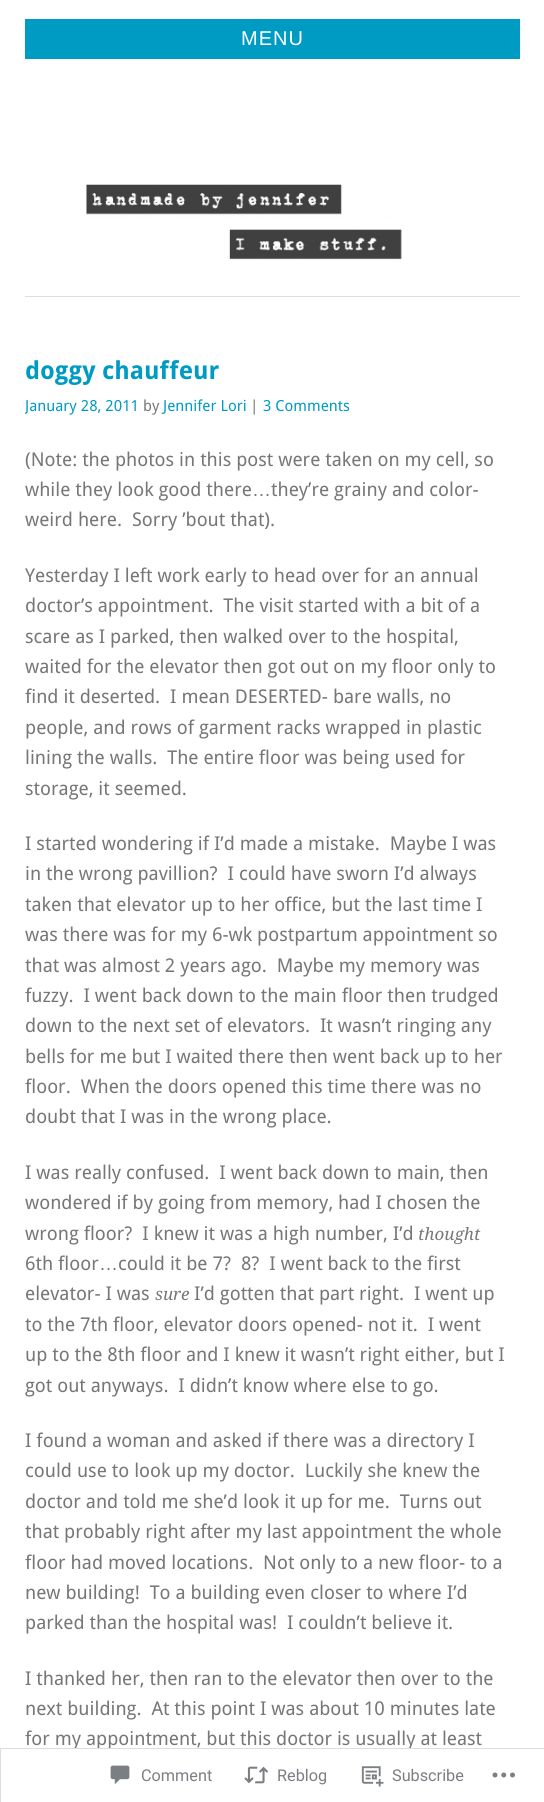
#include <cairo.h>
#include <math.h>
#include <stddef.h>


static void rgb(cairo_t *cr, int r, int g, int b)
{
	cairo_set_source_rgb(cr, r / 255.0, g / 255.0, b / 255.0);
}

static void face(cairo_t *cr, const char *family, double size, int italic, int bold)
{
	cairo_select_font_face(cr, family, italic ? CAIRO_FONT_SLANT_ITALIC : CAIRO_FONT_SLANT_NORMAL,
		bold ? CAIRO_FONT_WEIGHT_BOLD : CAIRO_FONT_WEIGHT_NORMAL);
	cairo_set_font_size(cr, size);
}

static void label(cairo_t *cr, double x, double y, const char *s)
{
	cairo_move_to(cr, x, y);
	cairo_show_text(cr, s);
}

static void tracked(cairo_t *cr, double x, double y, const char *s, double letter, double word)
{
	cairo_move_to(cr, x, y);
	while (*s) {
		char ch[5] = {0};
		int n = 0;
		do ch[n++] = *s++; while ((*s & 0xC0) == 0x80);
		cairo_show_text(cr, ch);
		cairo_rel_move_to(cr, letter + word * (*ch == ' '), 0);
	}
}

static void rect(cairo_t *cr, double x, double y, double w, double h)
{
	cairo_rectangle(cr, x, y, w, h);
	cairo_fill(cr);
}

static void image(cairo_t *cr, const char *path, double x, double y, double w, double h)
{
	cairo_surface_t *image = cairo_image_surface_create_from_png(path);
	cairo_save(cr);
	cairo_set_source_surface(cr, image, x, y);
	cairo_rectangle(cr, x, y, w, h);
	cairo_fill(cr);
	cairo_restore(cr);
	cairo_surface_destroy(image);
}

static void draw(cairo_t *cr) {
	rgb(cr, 255, 255, 255);
	cairo_paint(cr);
	rgb(cr, 0, 155, 194);
	rect(cr, 25, 19, 495, 40);
	face(cr, "Liberation Sans", 20, 0, 0);
	rgb(cr, 255, 255, 255);
	tracked(cr, 241, 45, "MENU", 1, 0);
	image(cr, "image0.png", 86, 184, 316, 76);
	rgb(cr, 221, 221, 221);
	rect(cr, 25, 296, 495, 1);
	face(cr, "Droid Sans", 24.75, 0, 1);
	rgb(cr, 0, 155, 194);
	label(cr, 25, 379, "doggy chauffeur");
	cairo_save(cr);
	cairo_rectangle(cr, 25, 354, 483, 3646);
	cairo_clip(cr);
	face(cr, "Droid Sans", 15.25, 0, 0);
	label(cr, 25, 411, "January 28, 2011");
	cairo_restore(cr);
	face(cr, "Droid Sans", 15.25, 0, 0);
	rgb(cr, 119, 119, 119);
	label(cr, 143, 411, "by");
	rgb(cr, 0, 155, 194);
	label(cr, 163, 411, "Jennifer Lori");
	rgb(cr, 119, 119, 119);
	label(cr, 250, 411, "|");
	rgb(cr, 0, 155, 194);
	label(cr, 263, 411, "3 Comments");
	face(cr, "Droid Sans", 19, 0, 0);
	rgb(cr, 119, 119, 119);
	label(cr, 25, 466, "(Note: the photos in this post were taken on my cell, so");
	label(cr, 25, 496, "while they look good there");
	face(cr, "Liberation Sans", 19, 0, 0);
	label(cr, 252, 496, "…");
	face(cr, "Droid Sans", 19, 0, 0);
	label(cr, 271, 496, "they’re grainy and color-");
	label(cr, 25, 526, "weird here.  Sorry ’bout that).");
	label(cr, 25, 582, "Yesterday I left work early to head over for an annual");
	label(cr, 25, 612, "doctor’s appointment.  The visit started with a bit of a");
	label(cr, 25, 643, "scare as I parked, then walked over to the hospital,");
	label(cr, 25, 673, "waited for the elevator then got out on my floor only to");
	label(cr, 25, 703, "find it deserted.  I mean DESERTED- bare walls, no");
	label(cr, 25, 734, "people, and rows of garment racks wrapped in plastic");
	label(cr, 25, 764, "lining the walls.  The entire floor was being used for");
	label(cr, 25, 795, "storage, it seemed.");
	label(cr, 25, 850, "I started wondering if I’d made a mistake.  Maybe I was");
	label(cr, 25, 880, "in the wrong pavillion?  I could have sworn I’d always");
	label(cr, 25, 911, "taken that elevator up to her office, but the last time I");
	label(cr, 25, 941, "was there was for my 6-wk postpartum appointment so");
	label(cr, 25, 972, "that was almost 2 years ago.  Maybe my memory was");
	label(cr, 25, 1002, "fuzzy.  I went back down to the main floor then trudged");
	label(cr, 25, 1032, "down to the next set of elevators.  It wasn’t ringing any");
	label(cr, 25, 1063, "bells for me but I waited there then went back up to her");
	label(cr, 25, 1093, "floor.  When the doors opened this time there was no");
	label(cr, 25, 1123, "doubt that I was in the wrong place.");
	label(cr, 25, 1179, "I was really confused.  I went back down to main, then");
	label(cr, 25, 1209, "wondered if by going from memory, had I chosen the");
	label(cr, 25, 1240, "wrong floor?  I knew it was a high number, I’d");
	face(cr, "Droid Serif", 17, 1, 0);
	label(cr, 418, 1240, "thought");
	face(cr, "Droid Sans", 19, 0, 0);
	label(cr, 25, 1270, "6th floor");
	face(cr, "Liberation Sans", 19, 0, 0);
	label(cr, 99, 1270, "…");
	face(cr, "Droid Sans", 19, 0, 0);
	label(cr, 118, 1270, "could it be 7?  8?  I went back to the first");
	label(cr, 25, 1300, "elevator- I was");
	face(cr, "Droid Serif", 17, 1, 0);
	label(cr, 155, 1300, "sure");
	face(cr, "Droid Sans", 19, 0, 0);
	label(cr, 194, 1300, "I’d gotten that part right.  I went up");
	label(cr, 25, 1331, "to the 7th floor, elevator doors opened- not it.  I went");
	label(cr, 25, 1361, "up to the 8th floor and I knew it wasn’t right either, but I");
	label(cr, 25, 1392, "got out anyways.  I didn’t know where else to go.");
	label(cr, 25, 1447, "I found a woman and asked if there was a directory I");
	label(cr, 25, 1477, "could use to look up my doctor.  Luckily she knew the");
	label(cr, 25, 1508, "doctor and told me she’d look it up for me.  Turns out");
	label(cr, 25, 1538, "that probably right after my last appointment the whole");
	label(cr, 25, 1569, "floor had moved locations.  Not only to a new floor- to a");
	label(cr, 25, 1599, "new building!  To a building even closer to where I’d");
	label(cr, 25, 1629, "parked than the hospital was!  I couldn’t believe it.");
	label(cr, 25, 1685, "I thanked her, then ran to the elevator then over to the");
	label(cr, 25, 1715, "next building.  At this point I was about 10 minutes late");
	label(cr, 25, 1745, "for my appointment, but this doctor is usually at least");
	cairo_set_source_rgba(cr, 1, 1, 1, 0.98);
	rect(cr, 72, 1748, 339, 2);
	cairo_rectangle(cr, 0.5, 1748.5, 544, 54);
	cairo_set_source_rgba(cr, 0.863, 0.863, 0.871, 0.98);
	cairo_set_line_width(cr, 1);
	cairo_stroke(cr);
	image(cr, "image1.png", 110, 1765, 20, 20);
	face(cr, "Roboto", 16.25, 0, 0);
	rgb(cr, 123, 127, 132);
	label(cr, 141, 1781, "Comment");
	image(cr, "image2.png", 244, 1766, 25, 18);
	label(cr, 277, 1781, "Reblog");
	image(cr, "image3.png", 361, 1766, 23, 21);
	label(cr, 392, 1781, "Subscribe");
	image(cr, "image4.png", 492, 1772, 23, 6);
}

int main(void) {
	cairo_surface_t *surface = cairo_image_surface_create(CAIRO_FORMAT_RGB24, 544, 1802);
	cairo_t *cr = cairo_create(surface);
	cairo_font_options_t *options = cairo_font_options_create();
	cairo_font_options_set_hint_metrics(options, CAIRO_HINT_METRICS_OFF);
	cairo_font_options_set_hint_style(options, CAIRO_HINT_STYLE_NONE);
	cairo_set_font_options(cr, options);
	cairo_set_miter_limit(cr, 4);
	draw(cr);
	cairo_surface_write_to_png(surface, "render.png");
	cairo_font_options_destroy(options);
	cairo_destroy(cr);
	cairo_surface_destroy(surface);
	return 0;
}
